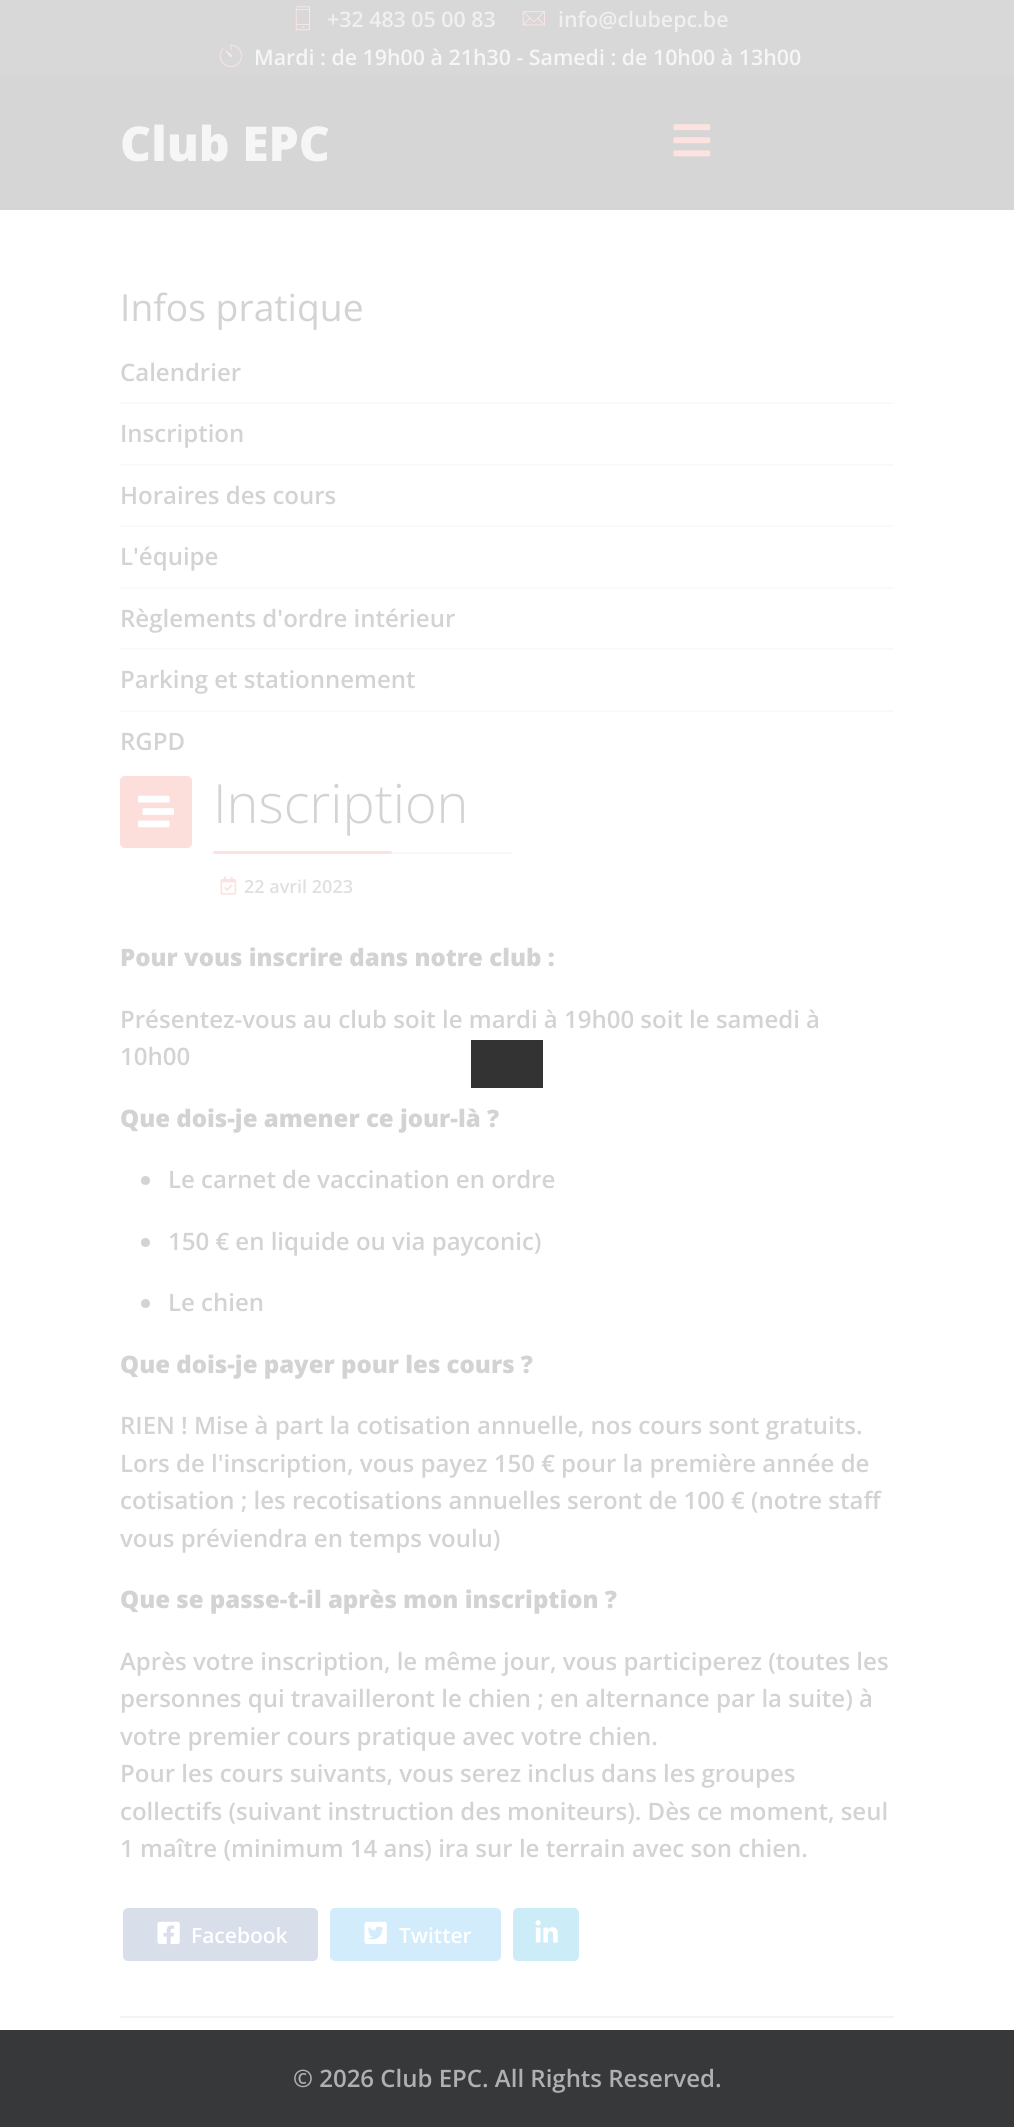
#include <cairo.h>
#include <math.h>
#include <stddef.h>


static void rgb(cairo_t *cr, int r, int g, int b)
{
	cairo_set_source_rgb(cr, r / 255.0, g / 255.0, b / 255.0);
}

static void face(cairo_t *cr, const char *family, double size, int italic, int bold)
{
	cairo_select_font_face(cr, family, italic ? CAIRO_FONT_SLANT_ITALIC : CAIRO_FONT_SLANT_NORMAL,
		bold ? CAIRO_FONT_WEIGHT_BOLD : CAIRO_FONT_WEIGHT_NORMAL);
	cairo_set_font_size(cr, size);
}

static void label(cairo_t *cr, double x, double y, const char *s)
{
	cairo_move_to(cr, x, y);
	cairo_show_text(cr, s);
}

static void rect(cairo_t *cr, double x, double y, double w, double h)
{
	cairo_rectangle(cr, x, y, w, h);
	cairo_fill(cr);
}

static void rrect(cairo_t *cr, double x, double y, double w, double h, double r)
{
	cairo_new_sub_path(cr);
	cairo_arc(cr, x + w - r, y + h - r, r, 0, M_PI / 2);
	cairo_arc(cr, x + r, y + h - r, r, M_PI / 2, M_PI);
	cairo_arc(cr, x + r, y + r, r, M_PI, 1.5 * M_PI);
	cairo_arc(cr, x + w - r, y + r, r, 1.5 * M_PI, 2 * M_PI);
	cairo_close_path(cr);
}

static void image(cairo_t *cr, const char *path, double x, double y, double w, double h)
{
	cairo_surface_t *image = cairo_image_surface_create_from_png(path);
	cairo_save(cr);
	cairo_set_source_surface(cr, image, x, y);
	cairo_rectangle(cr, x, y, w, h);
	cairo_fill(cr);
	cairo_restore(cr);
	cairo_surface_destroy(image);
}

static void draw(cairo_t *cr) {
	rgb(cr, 255, 255, 255);
	cairo_paint(cr);
	rgb(cr, 216, 216, 216);
	rect(cr, 0, 0, 1014, 75);
	image(cr, "image0.png", 295, 6, 15, 25);
	face(cr, "Open Sans SemiBold", 21.35, 0, 0);
	rgb(cr, 240, 240, 240);
	label(cr, 327, 27, "+32 483 05 00 83");
	image(cr, "image1.png", 522, 11, 23, 15);
	label(cr, 558, 27, "info@clubepc.be");
	image(cr, "image2.png", 219, 44, 23, 23);
	rgb(cr, 246, 246, 246);
	label(cr, 254, 65, "Mardi : de 19h00 à 21h30 - Samedi : de 10h00 à 13h00");
	rgb(cr, 214, 214, 214);
	rect(cr, 0, 75, 1014, 135);
	face(cr, "Open Sans ExtraBold", 48, 0, 0);
	rgb(cr, 246, 246, 246);
	label(cr, 120, 161, "Club EPC");
	image(cr, "image3.png", 673, 124, 38, 33);
	face(cr, "Open Sans", 37.25, 0, 0);
	rgb(cr, 211, 211, 212);
	label(cr, 120, 321, "Infos pratique");
	rgb(cr, 250, 250, 250);
	rect(cr, 120, 402, 774, 2);
	face(cr, "Open Sans SemiBold", 24, 0, 0);
	rgb(cr, 211, 211, 212);
	label(cr, 120, 381, "Calendrier");
	rgb(cr, 250, 250, 250);
	rect(cr, 120, 464, 774, 2);
	rgb(cr, 211, 211, 212);
	label(cr, 120, 442, "Inscription");
	rgb(cr, 250, 250, 250);
	rect(cr, 120, 525, 774, 2);
	rgb(cr, 211, 211, 212);
	label(cr, 120, 504, "Horaires des cours");
	rgb(cr, 250, 250, 250);
	rect(cr, 120, 587, 774, 2);
	rgb(cr, 211, 211, 212);
	label(cr, 120, 565, "L'équipe");
	rgb(cr, 250, 250, 250);
	rect(cr, 120, 648, 774, 2);
	rgb(cr, 211, 211, 212);
	label(cr, 120, 627, "Règlements d'ordre intérieur");
	rgb(cr, 250, 250, 250);
	rect(cr, 120, 710, 774, 2);
	rgb(cr, 211, 211, 212);
	label(cr, 120, 688, "Parking et stationnement");
	label(cr, 120, 750, "RGPD");
	rgb(cr, 252, 222, 218);
	rrect(cr, 120, 776, 72, 72, 5);
	cairo_fill(cr);
	image(cr, "image4.png", 138, 795, 36, 33);
	rgb(cr, 248, 248, 248);
	rect(cr, 213, 852, 300, 2);
	face(cr, "Open Sans Light", 54, 0, 0);
	rgb(cr, 211, 211, 212);
	label(cr, 213, 823, "Inscription");
	rgb(cr, 253, 227, 224);
	rrect(cr, 213, 851, 179, 3, 1.5);
	cairo_fill(cr);
	image(cr, "image5.png", 220, 876, 17, 19);
	face(cr, "Open Sans SemiBold", 18, 0, 0);
	rgb(cr, 224, 224, 224);
	label(cr, 244, 893, "22 avril 2023");
	face(cr, "Open Sans ExtraBold", 24, 0, 0);
	rgb(cr, 211, 211, 212);
	label(cr, 120, 966, "Pour vous inscrire dans notre club :");
	face(cr, "Open Sans SemiBold", 24, 0, 0);
	label(cr, 120, 1028, "Présentez-vous au club soit le mardi à 19h00 soit le samedi à");
	label(cr, 120, 1065, "10h00");
	face(cr, "Open Sans ExtraBold", 24, 0, 0);
	label(cr, 120, 1127, "Que dois-je amener ce jour-là ?");
	cairo_new_path(cr);
	cairo_arc(cr, 145.5, 1180.5, 4.5, 0, 2 * M_PI);
	cairo_fill(cr);
	face(cr, "Open Sans SemiBold", 24, 0, 0);
	label(cr, 168, 1188, "Le carnet de vaccination en ordre");
	cairo_new_path(cr);
	cairo_arc(cr, 145.5, 1242.5, 4.5, 0, 2 * M_PI);
	cairo_fill(cr);
	label(cr, 168, 1250, "150 € en liquide ou via payconic)");
	cairo_new_path(cr);
	cairo_arc(cr, 145.5, 1303.5, 4.5, 0, 2 * M_PI);
	cairo_fill(cr);
	label(cr, 168, 1311, "Le chien");
	face(cr, "Open Sans ExtraBold", 24, 0, 0);
	label(cr, 120, 1373, "Que dois-je payer pour les cours ?");
	face(cr, "Open Sans SemiBold", 24, 0, 0);
	label(cr, 120, 1434, "RIEN ! Mise à part la cotisation annuelle, nos cours sont gratuits.");
	label(cr, 120, 1472, "Lors de l'inscription, vous payez 150 € pour la première année de");
	label(cr, 120, 1509, "cotisation ; les recotisations annuelles seront de 100 € (notre staff");
	label(cr, 120, 1547, "vous préviendra en temps voulu)");
	face(cr, "Open Sans ExtraBold", 24, 0, 0);
	label(cr, 120, 1608, "Que se passe-t-il après mon inscription ?");
	face(cr, "Open Sans SemiBold", 24, 0, 0);
	label(cr, 120, 1670, "Après votre inscription, le même jour, vous participerez (toutes les");
	label(cr, 120, 1707, "personnes qui travailleront le chien ; en alternance par la suite) à");
	label(cr, 120, 1745, "votre premier cours pratique avec votre chien.");
	label(cr, 120, 1782, "Pour les cours suivants, vous serez inclus dans les groupes");
	label(cr, 120, 1820, "collectifs (suivant instruction des moniteurs). Dès ce moment, seul");
	label(cr, 120, 1857, "1 maître (minimum 14 ans) ira sur le terrain avec son chien.");
	rgb(cr, 216, 222, 234);
	rrect(cr, 123, 1908, 195, 53, 5);
	cairo_fill(cr);
	image(cr, "image6.png", 157, 1921, 23, 24);
	face(cr, "Open Sans SemiBold", 21, 0, 0);
	rgb(cr, 255, 255, 255);
	label(cr, 191, 1943, "Facebook");
	rgb(cr, 210, 236, 252);
	rrect(cr, 330, 1908, 171, 53, 5);
	cairo_fill(cr);
	image(cr, "image7.png", 364, 1921, 23, 24);
	rgb(cr, 255, 255, 255);
	label(cr, 399, 1943, "Twitter");
	rgb(cr, 204, 236, 248);
	rrect(cr, 513, 1908, 66, 53, 5);
	cairo_fill(cr);
	image(cr, "image8.png", 535, 1920, 23, 23);
	rgb(cr, 244, 244, 244);
	rect(cr, 120, 2016, 774, 2);
	rgb(cr, 51, 51, 51);
	rect(cr, 471, 1040, 72, 48);
	rgb(cr, 54, 56, 57);
	rect(cr, 0, 2030, 1014, 97);
	face(cr, "Open Sans SemiBold", 24, 0, 0);
	rgb(cr, 176, 176, 176);
	label(cr, 293, 2087, "© 2026 Club EPC. All Rights Reserved.");
}

int main(void) {
	cairo_surface_t *surface = cairo_image_surface_create(CAIRO_FORMAT_RGB24, 1014, 2127);
	cairo_t *cr = cairo_create(surface);
	cairo_font_options_t *options = cairo_font_options_create();
	cairo_font_options_set_hint_metrics(options, CAIRO_HINT_METRICS_OFF);
	cairo_font_options_set_hint_style(options, CAIRO_HINT_STYLE_NONE);
	cairo_set_font_options(cr, options);
	cairo_set_miter_limit(cr, 4);
	draw(cr);
	cairo_surface_write_to_png(surface, "render.png");
	cairo_font_options_destroy(options);
	cairo_destroy(cr);
	cairo_surface_destroy(surface);
	return 0;
}
